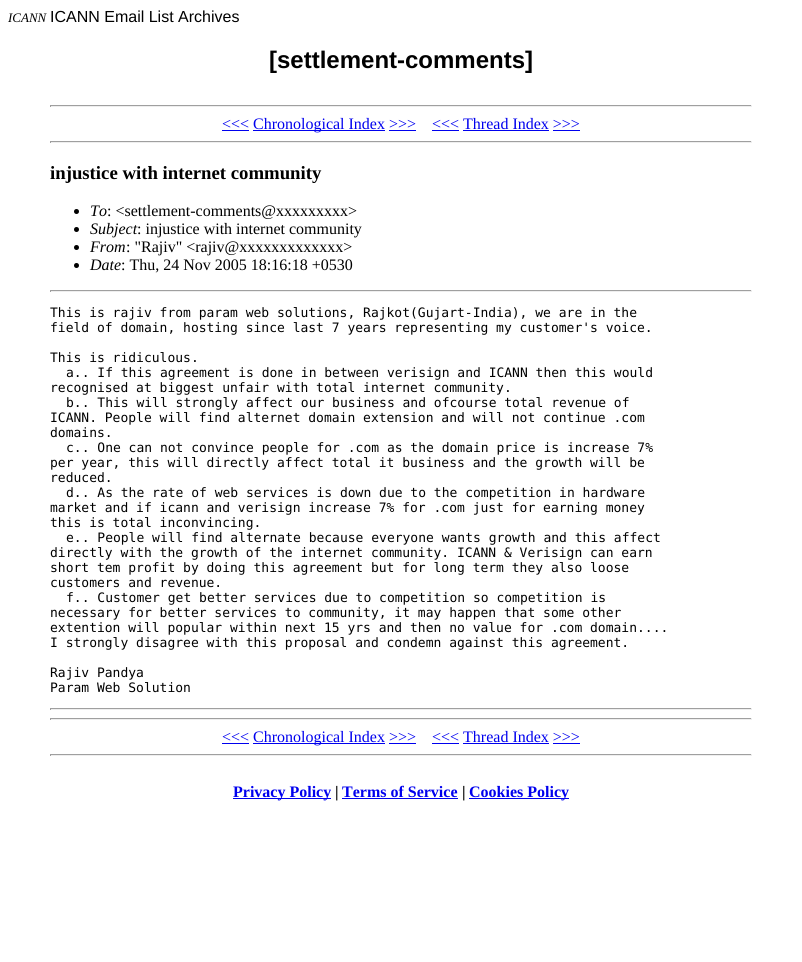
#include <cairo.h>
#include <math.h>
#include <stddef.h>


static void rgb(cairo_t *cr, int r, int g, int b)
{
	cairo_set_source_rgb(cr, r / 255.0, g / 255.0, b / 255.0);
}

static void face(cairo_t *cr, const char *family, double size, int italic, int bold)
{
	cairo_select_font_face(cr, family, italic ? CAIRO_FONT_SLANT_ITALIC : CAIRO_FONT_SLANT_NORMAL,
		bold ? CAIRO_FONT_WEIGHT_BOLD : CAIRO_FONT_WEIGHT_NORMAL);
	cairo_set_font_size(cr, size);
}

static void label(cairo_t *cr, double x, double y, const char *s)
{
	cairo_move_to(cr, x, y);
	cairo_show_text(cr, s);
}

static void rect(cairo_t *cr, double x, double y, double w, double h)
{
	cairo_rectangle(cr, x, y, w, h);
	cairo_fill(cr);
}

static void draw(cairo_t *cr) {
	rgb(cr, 255, 255, 255);
	cairo_paint(cr);
	face(cr, "Liberation Serif", 13, 1, 0);
	rgb(cr, 0, 0, 0);
	label(cr, 8, 22, "ICANN");
	face(cr, "Liberation Sans", 16, 0, 0);
	label(cr, 50, 22, "ICANN Email List Archives");
	face(cr, "Liberation Sans", 24, 0, 1);
	label(cr, 269, 68, "[settlement-comments]");
	rgb(cr, 159, 159, 159);
	rect(cr, 50, 105, 702, 1);
	rgb(cr, 238, 238, 238);
	rect(cr, 751, 105, 1, 2);
	rect(cr, 50, 106, 702, 1);
	rgb(cr, 159, 159, 159);
	rect(cr, 50, 105, 1, 2);
	face(cr, "Liberation Serif", 16, 0, 0);
	rgb(cr, 0, 0, 238);
	label(cr, 222, 129, "<<<");
	rect(cr, 222, 130, 27, 1);
	rect(cr, 253, 130, 132, 1);
	label(cr, 253, 129, "Chronological Index >>>");
	label(cr, 432, 129, "<<< Thread Index >>>");
	rect(cr, 432, 130, 27, 1);
	rect(cr, 389, 130, 27, 1);
	rect(cr, 463, 130, 86, 1);
	rect(cr, 553, 130, 27, 1);
	rgb(cr, 159, 159, 159);
	rect(cr, 50, 141, 702, 1);
	rgb(cr, 238, 238, 238);
	rect(cr, 751, 141, 1, 2);
	rect(cr, 50, 142, 702, 1);
	rgb(cr, 159, 159, 159);
	rect(cr, 50, 141, 1, 2);
	face(cr, "Liberation Serif", 18.75, 0, 1);
	rgb(cr, 0, 0, 0);
	label(cr, 50, 179, "injustice with internet community");
	cairo_new_path(cr);
	cairo_arc(cr, 76.5, 211.5, 2.5, 0, 2 * M_PI);
	cairo_fill(cr);
	face(cr, "Liberation Serif", 16, 1, 0);
	label(cr, 90, 216, "To");
	face(cr, "Liberation Serif", 16, 0, 0);
	label(cr, 107, 216, ": <settlement-comments@xxxxxxxxx>");
	cairo_new_path(cr);
	cairo_arc(cr, 76.5, 229.5, 2.5, 0, 2 * M_PI);
	cairo_fill(cr);
	face(cr, "Liberation Serif", 16, 1, 0);
	label(cr, 90, 234, "Subject");
	face(cr, "Liberation Serif", 16, 0, 0);
	label(cr, 137, 234, ": injustice with internet community");
	cairo_new_path(cr);
	cairo_arc(cr, 76.5, 247.5, 2.5, 0, 2 * M_PI);
	cairo_fill(cr);
	face(cr, "Liberation Serif", 16, 1, 0);
	label(cr, 90, 252, "From");
	face(cr, "Liberation Serif", 16, 0, 0);
	label(cr, 126, 252, ": \"Rajiv\" <rajiv@xxxxxxxxxxxxx>");
	cairo_new_path(cr);
	cairo_arc(cr, 76.5, 265.5, 2.5, 0, 2 * M_PI);
	cairo_fill(cr);
	face(cr, "Liberation Serif", 16, 1, 0);
	label(cr, 90, 270, "Date");
	face(cr, "Liberation Serif", 16, 0, 0);
	label(cr, 121, 270, ": Thu, 24 Nov 2005 18:16:18 +0530");
	rgb(cr, 159, 159, 159);
	rect(cr, 50, 290, 702, 1);
	rgb(cr, 238, 238, 238);
	rect(cr, 751, 290, 1, 2);
	rect(cr, 50, 291, 702, 1);
	rgb(cr, 159, 159, 159);
	rect(cr, 50, 290, 1, 2);
	face(cr, "DejaVu Sans Mono", 13, 0, 0);
	rgb(cr, 0, 0, 0);
	label(cr, 50, 317, "This is rajiv from param web solutions, Rajkot(Gujart-India), we are in the");
	label(cr, 50, 332, "field of domain, hosting since last 7 years representing my customer's voice.");
	label(cr, 50, 362, "This is ridiculous.");
	label(cr, 66, 377, "a.. If this agreement is done in between verisign and ICANN then this would");
	label(cr, 50, 392, "recognised at biggest unfair with total internet community.");
	label(cr, 66, 407, "b.. This will strongly affect our business and ofcourse total revenue of");
	label(cr, 50, 422, "ICANN. People will find alternet domain extension and will not continue .com");
	label(cr, 50, 437, "domains.");
	label(cr, 66, 452, "c.. One can not convince people for .com as the domain price is increase 7%");
	label(cr, 50, 467, "per year, this will directly affect total it business and the growth will be");
	label(cr, 50, 482, "reduced.");
	label(cr, 66, 497, "d.. As the rate of web services is down due to the competition in hardware");
	label(cr, 50, 512, "market and if icann and verisign increase 7% for .com just for earning money");
	label(cr, 50, 527, "this is total inconvincing.");
	label(cr, 66, 542, "e.. People will find alternate because everyone wants growth and this affect");
	label(cr, 50, 557, "directly with the growth of the internet community. ICANN & Verisign can earn");
	label(cr, 50, 572, "short tem profit by doing this agreement but for long term they also loose");
	label(cr, 50, 587, "customers and revenue.");
	label(cr, 66, 602, "f.. Customer get better services due to competition so competition is");
	label(cr, 50, 617, "necessary for better services to community, it may happen that some other");
	label(cr, 50, 632, "extention will popular within next 15 yrs and then no value for .com domain....");
	label(cr, 50, 647, "I strongly disagree with this proposal and condemn against this agreement.");
	label(cr, 50, 677, "Rajiv Pandya");
	label(cr, 50, 692, "Param Web Solution");
	rgb(cr, 159, 159, 159);
	rect(cr, 50, 708, 702, 1);
	rgb(cr, 238, 238, 238);
	rect(cr, 751, 708, 1, 2);
	rect(cr, 50, 709, 702, 1);
	rgb(cr, 159, 159, 159);
	rect(cr, 50, 708, 1, 2);
	rect(cr, 50, 718, 702, 1);
	rgb(cr, 238, 238, 238);
	rect(cr, 751, 718, 1, 2);
	rect(cr, 50, 719, 702, 1);
	rgb(cr, 159, 159, 159);
	rect(cr, 50, 718, 1, 2);
	face(cr, "Liberation Serif", 16, 0, 0);
	rgb(cr, 0, 0, 238);
	label(cr, 222, 742, "<<<");
	rect(cr, 222, 743, 27, 1);
	rect(cr, 253, 743, 132, 1);
	label(cr, 253, 742, "Chronological Index >>>");
	label(cr, 432, 742, "<<< Thread Index >>>");
	rect(cr, 432, 743, 27, 1);
	rect(cr, 389, 743, 27, 1);
	rect(cr, 463, 743, 86, 1);
	rect(cr, 553, 743, 27, 1);
	rgb(cr, 159, 159, 159);
	rect(cr, 50, 754, 702, 1);
	rgb(cr, 238, 238, 238);
	rect(cr, 751, 754, 1, 2);
	rect(cr, 50, 755, 702, 1);
	rgb(cr, 159, 159, 159);
	rect(cr, 50, 754, 1, 2);
	rgb(cr, 0, 0, 238);
	rect(cr, 233, 798, 98, 1);
	face(cr, "Liberation Serif", 16, 0, 1);
	label(cr, 233, 797, "Privacy Policy");
	rgb(cr, 0, 0, 0);
	label(cr, 335, 797, "|");
	rgb(cr, 0, 0, 238);
	label(cr, 342, 797, "Terms of Service");
	rect(cr, 342, 798, 116, 1);
	rgb(cr, 0, 0, 0);
	label(cr, 462, 797, "|");
	rgb(cr, 0, 0, 238);
	rect(cr, 469, 798, 100, 1);
	label(cr, 469, 797, "Cookies Policy");
}

int main(void) {
	cairo_surface_t *surface = cairo_image_surface_create(CAIRO_FORMAT_RGB24, 802, 962);
	cairo_t *cr = cairo_create(surface);
	cairo_font_options_t *options = cairo_font_options_create();
	cairo_font_options_set_hint_metrics(options, CAIRO_HINT_METRICS_OFF);
	cairo_font_options_set_hint_style(options, CAIRO_HINT_STYLE_NONE);
	cairo_set_font_options(cr, options);
	cairo_set_miter_limit(cr, 4);
	draw(cr);
	cairo_surface_write_to_png(surface, "render.png");
	cairo_font_options_destroy(options);
	cairo_destroy(cr);
	cairo_surface_destroy(surface);
	return 0;
}
